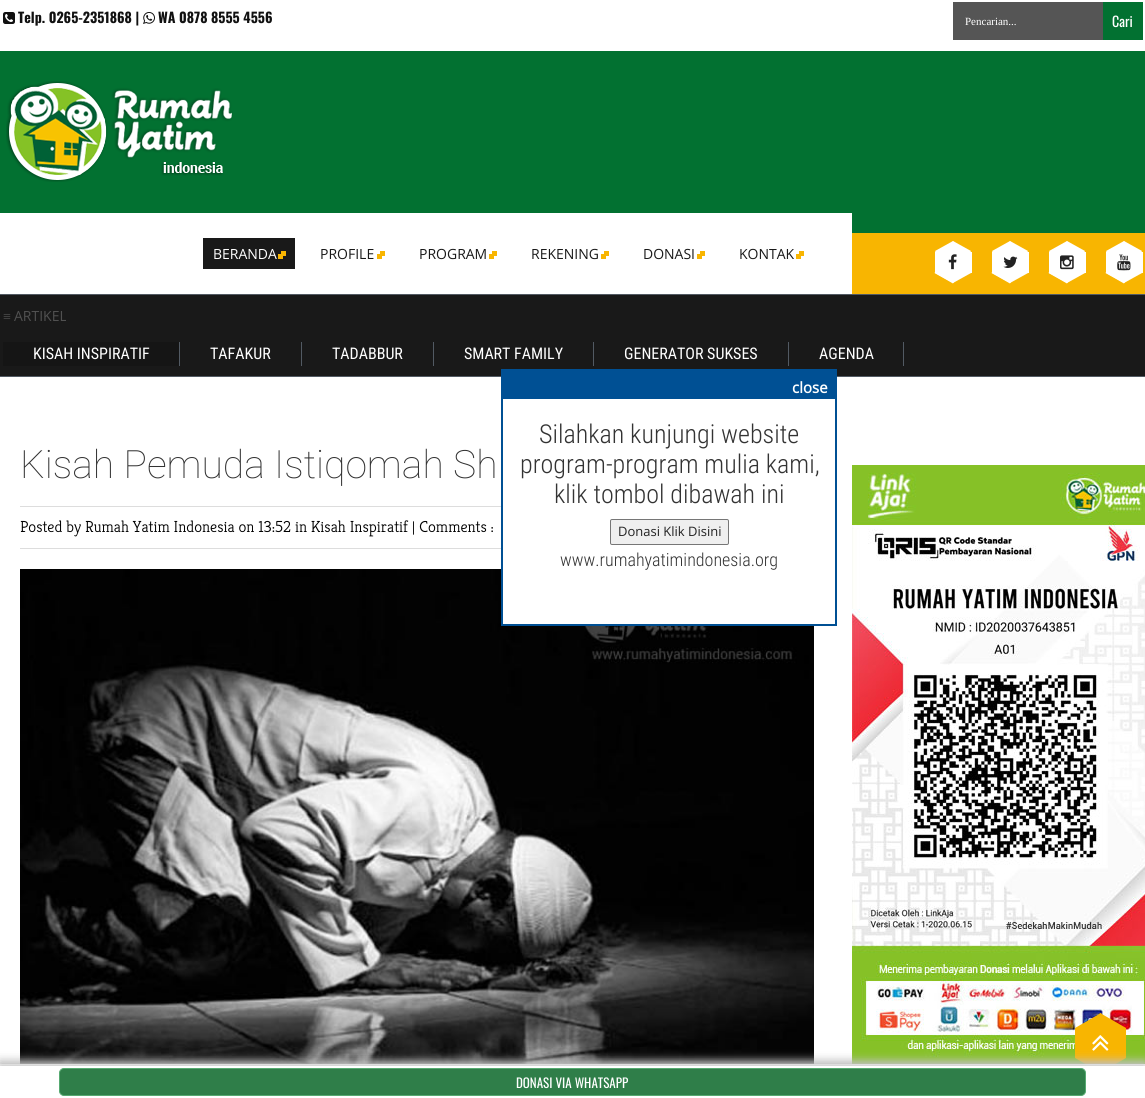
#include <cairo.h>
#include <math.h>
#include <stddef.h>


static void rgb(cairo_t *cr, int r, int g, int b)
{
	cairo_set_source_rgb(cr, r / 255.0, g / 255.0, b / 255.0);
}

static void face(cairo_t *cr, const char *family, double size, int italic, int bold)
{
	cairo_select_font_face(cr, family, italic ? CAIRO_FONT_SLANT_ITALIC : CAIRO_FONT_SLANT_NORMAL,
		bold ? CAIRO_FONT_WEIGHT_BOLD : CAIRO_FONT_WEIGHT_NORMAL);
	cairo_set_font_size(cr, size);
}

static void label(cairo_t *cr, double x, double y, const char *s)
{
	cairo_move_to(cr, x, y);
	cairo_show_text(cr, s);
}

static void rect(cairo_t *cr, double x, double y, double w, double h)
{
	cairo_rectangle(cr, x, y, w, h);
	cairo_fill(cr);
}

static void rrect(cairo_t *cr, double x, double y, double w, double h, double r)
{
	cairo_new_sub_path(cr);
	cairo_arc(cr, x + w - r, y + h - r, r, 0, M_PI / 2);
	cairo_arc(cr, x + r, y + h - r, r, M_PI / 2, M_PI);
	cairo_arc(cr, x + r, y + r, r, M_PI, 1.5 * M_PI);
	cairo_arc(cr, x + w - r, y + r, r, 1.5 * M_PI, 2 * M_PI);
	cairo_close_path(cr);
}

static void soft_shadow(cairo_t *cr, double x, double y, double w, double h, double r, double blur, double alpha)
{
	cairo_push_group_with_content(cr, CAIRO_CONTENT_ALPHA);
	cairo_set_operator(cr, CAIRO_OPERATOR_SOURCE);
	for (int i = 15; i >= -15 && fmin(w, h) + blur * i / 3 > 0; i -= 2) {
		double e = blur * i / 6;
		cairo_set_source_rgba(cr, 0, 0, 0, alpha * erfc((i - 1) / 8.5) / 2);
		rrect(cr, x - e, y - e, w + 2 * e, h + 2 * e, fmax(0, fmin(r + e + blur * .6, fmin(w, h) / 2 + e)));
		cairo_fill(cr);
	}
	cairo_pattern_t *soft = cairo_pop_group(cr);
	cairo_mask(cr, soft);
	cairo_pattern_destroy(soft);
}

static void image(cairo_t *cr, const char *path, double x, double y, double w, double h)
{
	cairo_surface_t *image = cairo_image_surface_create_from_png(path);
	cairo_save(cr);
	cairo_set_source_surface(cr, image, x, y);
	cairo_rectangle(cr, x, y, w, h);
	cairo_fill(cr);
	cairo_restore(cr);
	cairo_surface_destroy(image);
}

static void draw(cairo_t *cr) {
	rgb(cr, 255, 255, 255);
	cairo_paint(cr);
	image(cr, "image0.png", 3, 12, 12, 12);
	face(cr, "Oswald", 14, 0, 1);
	rgb(cr, 17, 17, 17);
	label(cr, 18, 23, "Telp. 0265-2351868 |");
	image(cr, "image1.png", 143, 12, 12, 12);
	label(cr, 158, 23, "WA 0878 8555 4556");
	rgb(cr, 85, 85, 85);
	rect(cr, 953, 2, 150, 38);
	face(cr, "Liberation Serif", 11, 0, 0);
	rgb(cr, 255, 255, 255);
	label(cr, 965, 25, "Pencarian...");
	rgb(cr, 2, 113, 49);
	rect(cr, 1103, 2, 40, 38);
	face(cr, "Oswald", 14, 0, 0);
	rgb(cr, 255, 255, 255);
	label(cr, 1112, 27, "Cari");
	rgb(cr, 2, 113, 49);
	rect(cr, 0, 51, 1145, 182);
	image(cr, "image2.png", 6, 81, 227, 101);
	rgb(cr, 248, 181, 1);
	rect(cr, 852, 233, 293, 61);
	rgb(cr, 255, 255, 255);
	rect(cr, 0, 213, 852, 20);
	rgb(cr, 25, 25, 25);
	rect(cr, 203, 238, 92, 31);
	face(cr, "Open Sans", 14, 0, 0);
	rgb(cr, 255, 255, 255);
	label(cr, 213, 259, "BERANDA");
	rgb(cr, 248, 181, 1);
	rect(cr, 278, 254, 5, 5);
	rect(cr, 281, 251, 5, 5);
	rgb(cr, 25, 25, 25);
	label(cr, 320, 259, "PROFILE");
	rgb(cr, 248, 181, 1);
	rect(cr, 377, 254, 5, 5);
	rect(cr, 380, 251, 5, 5);
	rgb(cr, 25, 25, 25);
	label(cr, 419, 259, "PROGRAM");
	rgb(cr, 248, 181, 1);
	rect(cr, 489, 254, 5, 5);
	rect(cr, 492, 251, 5, 5);
	rgb(cr, 25, 25, 25);
	label(cr, 531, 259, "REKENING");
	rgb(cr, 248, 181, 1);
	rect(cr, 601, 254, 5, 5);
	rect(cr, 604, 251, 5, 5);
	rgb(cr, 25, 25, 25);
	label(cr, 643, 259, "DONASI");
	rgb(cr, 248, 181, 1);
	rect(cr, 697, 254, 5, 5);
	rect(cr, 700, 251, 5, 5);
	rgb(cr, 25, 25, 25);
	label(cr, 739, 259, "KONTAK");
	rgb(cr, 248, 181, 1);
	rect(cr, 796, 254, 5, 5);
	rect(cr, 799, 251, 5, 5);
	rgb(cr, 255, 255, 255);
	rect(cr, 935, 252, 37, 21);
	cairo_new_path(cr);
	cairo_move_to(cr, 953, 241);
	cairo_line_to(cr, 971, 273);
	cairo_line_to(cr, 953, 283);
	cairo_line_to(cr, 935, 251);
	cairo_close_path(cr);
	cairo_fill(cr);
	cairo_new_path(cr);
	cairo_move_to(cr, 935, 273);
	cairo_line_to(cr, 953, 241);
	cairo_line_to(cr, 971, 251);
	cairo_line_to(cr, 953, 283);
	cairo_close_path(cr);
	cairo_fill(cr);
	cairo_new_path(cr);
	cairo_move_to(cr, 934.5, 273);
	cairo_line_to(cr, 953, 283.5);
	cairo_line_to(cr, 965, 262);
	cairo_line_to(cr, 941, 262);
	cairo_close_path(cr);
	cairo_fill(cr);
	image(cr, "image3.png", 948, 254, 9, 16);
	rect(cr, 992, 252, 37, 21);
	cairo_new_path(cr);
	cairo_move_to(cr, 1010, 241);
	cairo_line_to(cr, 1028, 273);
	cairo_line_to(cr, 1010, 283);
	cairo_line_to(cr, 992, 251);
	cairo_close_path(cr);
	cairo_fill(cr);
	cairo_new_path(cr);
	cairo_move_to(cr, 992, 273);
	cairo_line_to(cr, 1010, 241);
	cairo_line_to(cr, 1028, 251);
	cairo_line_to(cr, 1010, 283);
	cairo_close_path(cr);
	cairo_fill(cr);
	cairo_new_path(cr);
	cairo_move_to(cr, 991.5, 273);
	cairo_line_to(cr, 1010, 283.5);
	cairo_line_to(cr, 1022, 262);
	cairo_line_to(cr, 998, 262);
	cairo_close_path(cr);
	cairo_fill(cr);
	image(cr, "image4.png", 1003, 256, 15, 12);
	rect(cr, 1049, 252, 37, 21);
	cairo_new_path(cr);
	cairo_move_to(cr, 1067, 241);
	cairo_line_to(cr, 1085, 273);
	cairo_line_to(cr, 1067, 283);
	cairo_line_to(cr, 1049, 251);
	cairo_close_path(cr);
	cairo_fill(cr);
	cairo_new_path(cr);
	cairo_move_to(cr, 1049, 273);
	cairo_line_to(cr, 1067, 241);
	cairo_line_to(cr, 1085, 251);
	cairo_line_to(cr, 1067, 283);
	cairo_close_path(cr);
	cairo_fill(cr);
	cairo_new_path(cr);
	cairo_move_to(cr, 1048.5, 273);
	cairo_line_to(cr, 1067, 283.5);
	cairo_line_to(cr, 1079, 262);
	cairo_line_to(cr, 1055, 262);
	cairo_close_path(cr);
	cairo_fill(cr);
	image(cr, "image5.png", 1060, 255, 14, 15);
	rect(cr, 1106, 252, 37, 21);
	cairo_new_path(cr);
	cairo_move_to(cr, 1124, 241);
	cairo_line_to(cr, 1142, 273);
	cairo_line_to(cr, 1124, 283);
	cairo_line_to(cr, 1106, 251);
	cairo_close_path(cr);
	cairo_fill(cr);
	cairo_new_path(cr);
	cairo_move_to(cr, 1106, 273);
	cairo_line_to(cr, 1124, 241);
	cairo_line_to(cr, 1142, 251);
	cairo_line_to(cr, 1124, 283);
	cairo_close_path(cr);
	cairo_fill(cr);
	cairo_new_path(cr);
	cairo_move_to(cr, 1105.5, 273);
	cairo_line_to(cr, 1124, 283.5);
	cairo_line_to(cr, 1136, 262);
	cairo_line_to(cr, 1112, 262);
	cairo_close_path(cr);
	cairo_fill(cr);
	image(cr, "image6.png", 1117, 254, 14, 17);
	rgb(cr, 25, 25, 25);
	rect(cr, 0, 295, 1145, 81);
	rgb(cr, 82, 90, 99);
	rect(cr, 0, 294, 1145, 1);
	rect(cr, 0, 376, 1145, 1);
	face(cr, "Liberation Serif", 14, 0, 0);
	rgb(cr, 81, 81, 81);
	label(cr, 3, 321, "≡");
	face(cr, "Open Sans", 14, 0, 0);
	label(cr, 14, 321, "ARTIKEL");
	rgb(cr, 21, 21, 21);
	rect(cr, 3, 342, 176, 24);
	rgb(cr, 82, 90, 99);
	rect(cr, 179, 342, 1, 24);
	face(cr, "Roboto Condensed", 16, 0, 0);
	rgb(cr, 255, 255, 255);
	label(cr, 33, 359, "KISAH INSPIRATIF");
	rgb(cr, 82, 90, 99);
	rect(cr, 301, 342, 1, 24);
	rgb(cr, 255, 255, 255);
	label(cr, 210, 359, "TAFAKUR");
	rgb(cr, 82, 90, 99);
	rect(cr, 433, 342, 1, 24);
	rgb(cr, 255, 255, 255);
	label(cr, 332, 359, "TADABBUR");
	rgb(cr, 82, 90, 99);
	rect(cr, 593, 342, 1, 24);
	rgb(cr, 255, 255, 255);
	label(cr, 464, 359, "SMART FAMILY");
	rgb(cr, 82, 90, 99);
	rect(cr, 788, 342, 1, 24);
	rgb(cr, 255, 255, 255);
	label(cr, 624, 359, "GENERATOR SUKSES");
	rgb(cr, 82, 90, 99);
	rect(cr, 903, 342, 1, 24);
	rgb(cr, 255, 255, 255);
	label(cr, 819, 359, "AGENDA");
	face(cr, "Roboto Thin", 39, 0, 0);
	rgb(cr, 51, 51, 51);
	label(cr, 20, 478, "Kisah Pemuda Istiqomah Sh");
	rgb(cr, 221, 221, 221);
	rect(cr, 20, 506, 481, 1);
	rect(cr, 20, 548, 481, 1);
	face(cr, "Kreon Light", 16, 0, 0);
	rgb(cr, 0, 0, 0);
	label(cr, 20, 532, "Posted by Rumah Yatim Indonesia on 13:52 in Kisah Inspiratif | Comments :");
	image(cr, "image7.png", 20, 569, 794, 495);
	image(cr, "image8.png", 852, 465, 293, 599);
	rgb(cr, 248, 181, 1);
	rect(cr, 1075, 1028, 51, 30);
	cairo_new_path(cr);
	cairo_move_to(cr, 1101, 1013);
	cairo_line_to(cr, 1126, 1058);
	cairo_line_to(cr, 1100, 1073);
	cairo_line_to(cr, 1075, 1028);
	cairo_close_path(cr);
	cairo_fill(cr);
	cairo_new_path(cr);
	cairo_move_to(cr, 1075, 1058);
	cairo_line_to(cr, 1100, 1013);
	cairo_line_to(cr, 1126, 1028);
	cairo_line_to(cr, 1101, 1073);
	cairo_close_path(cr);
	cairo_fill(cr);
	image(cr, "image9.png", 1092, 1035, 17, 16);
	rgb(cr, 192, 192, 192);
	soft_shadow(cr, 0, 1062, 1145, 34, 0, 5, 1);
	rgb(cr, 255, 255, 255);
	rect(cr, 0, 1064, 1145, 2);
	rgb(cr, 0, 80, 148);
	rect(cr, 501, 369, 336, 30);
	face(cr, "Open Sans", 15, 0, 1);
	rgb(cr, 255, 255, 255);
	label(cr, 792, 393, "close");
	rect(cr, 503, 569, 311, 55);
	rgb(cr, 0, 80, 148);
	rect(cr, 835, 399, 2, 227);
	rect(cr, 501, 624, 336, 2);
	rect(cr, 501, 399, 2, 227);
	face(cr, "Roboto Condensed Light", 26, 0, 0);
	rgb(cr, 51, 51, 51);
	label(cr, 539, 443, "Silahkan kunjungi website");
	label(cr, 520, 473, "program-program mulia kami,");
	label(cr, 554, 503, "klik tombol dibawah ini");
	rgb(cr, 239, 239, 239);
	rrect(cr, 610.5, 519.5, 118, 25, 1.5);
	cairo_fill_preserve(cr);
	rgb(cr, 118, 118, 118);
	cairo_set_line_width(cr, 1);
	cairo_stroke(cr);
	face(cr, "Open Sans", 13, 0, 0);
	rgb(cr, 34, 34, 34);
	label(cr, 618, 536, "Donasi Klik Disini");
	face(cr, "Roboto Condensed Light", 18, 0, 0);
	rgb(cr, 51, 51, 51);
	label(cr, 560, 566, "www.rumahyatimindonesia.org");
	rgb(cr, 192, 192, 192);
	soft_shadow(cr, 0, 1064, 1145, 32, 0, 5, 1);
	rgb(cr, 255, 255, 255);
	rect(cr, 0, 1066, 1145, 32);
	rgb(cr, 47, 126, 73);
	rrect(cr, 59.5, 1068.5, 1026, 27, 4.5);
	cairo_fill_preserve(cr);
	rgb(cr, 86, 170, 113);
	cairo_stroke(cr);
	face(cr, "Oswald", 13, 0, 0);
	rgb(cr, 255, 255, 255);
	label(cr, 516, 1088, "DONASI VIA WHATSAPP");
}

int main(void) {
	cairo_surface_t *surface = cairo_image_surface_create(CAIRO_FORMAT_RGB24, 1145, 1098);
	cairo_t *cr = cairo_create(surface);
	cairo_font_options_t *options = cairo_font_options_create();
	cairo_font_options_set_hint_metrics(options, CAIRO_HINT_METRICS_OFF);
	cairo_font_options_set_hint_style(options, CAIRO_HINT_STYLE_NONE);
	cairo_set_font_options(cr, options);
	cairo_set_miter_limit(cr, 4);
	draw(cr);
	cairo_surface_write_to_png(surface, "render.png");
	cairo_font_options_destroy(options);
	cairo_destroy(cr);
	cairo_surface_destroy(surface);
	return 0;
}
